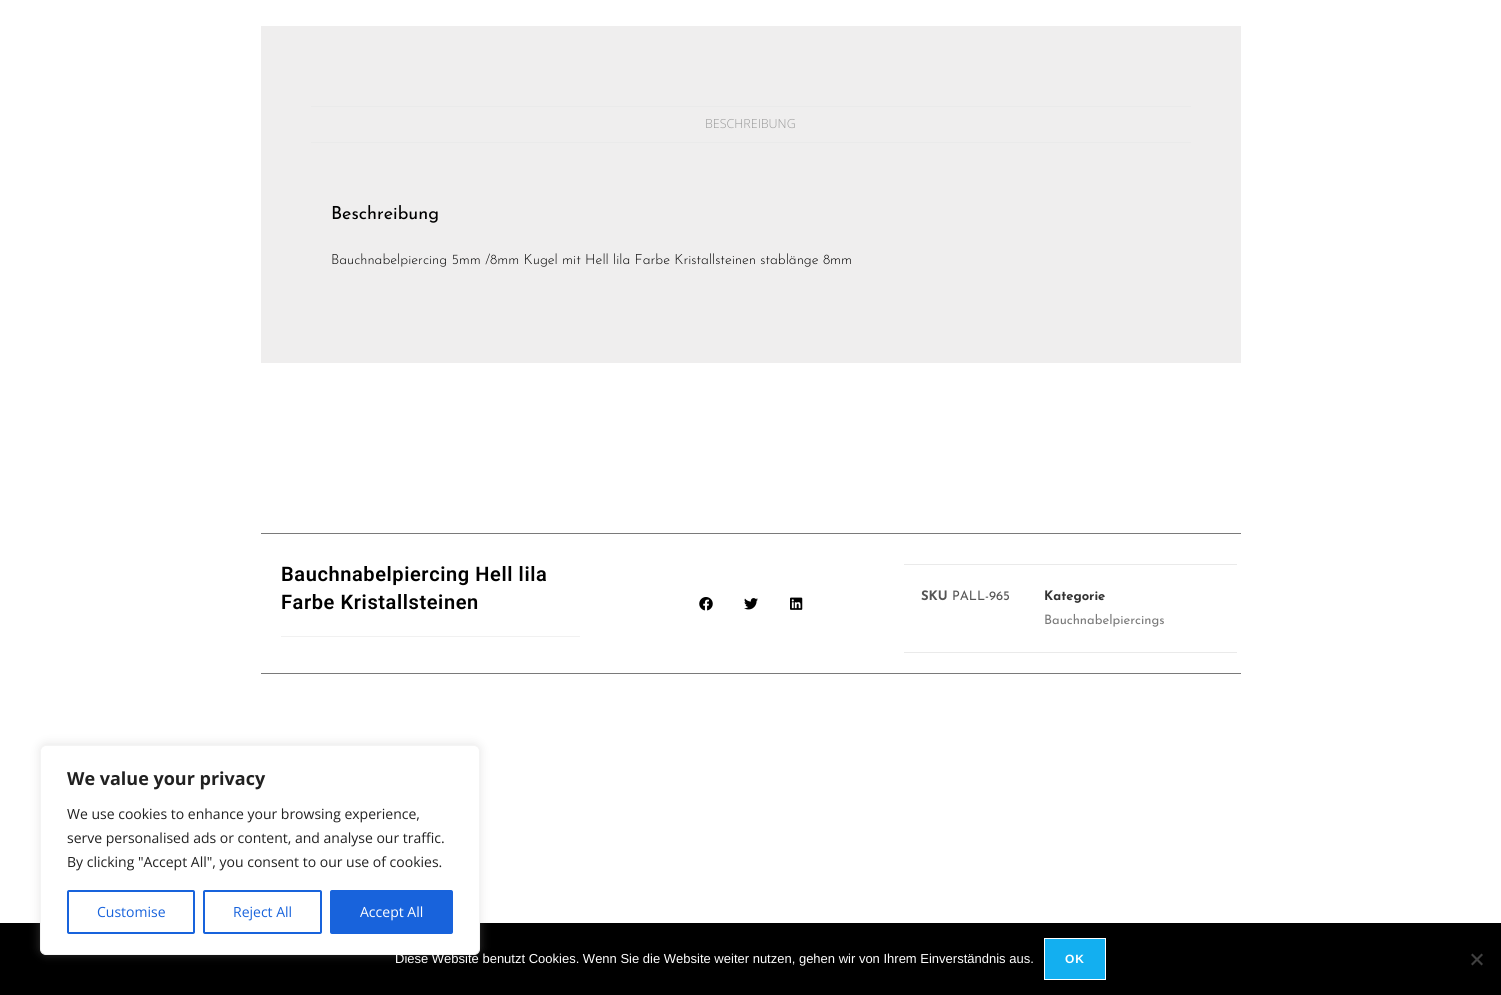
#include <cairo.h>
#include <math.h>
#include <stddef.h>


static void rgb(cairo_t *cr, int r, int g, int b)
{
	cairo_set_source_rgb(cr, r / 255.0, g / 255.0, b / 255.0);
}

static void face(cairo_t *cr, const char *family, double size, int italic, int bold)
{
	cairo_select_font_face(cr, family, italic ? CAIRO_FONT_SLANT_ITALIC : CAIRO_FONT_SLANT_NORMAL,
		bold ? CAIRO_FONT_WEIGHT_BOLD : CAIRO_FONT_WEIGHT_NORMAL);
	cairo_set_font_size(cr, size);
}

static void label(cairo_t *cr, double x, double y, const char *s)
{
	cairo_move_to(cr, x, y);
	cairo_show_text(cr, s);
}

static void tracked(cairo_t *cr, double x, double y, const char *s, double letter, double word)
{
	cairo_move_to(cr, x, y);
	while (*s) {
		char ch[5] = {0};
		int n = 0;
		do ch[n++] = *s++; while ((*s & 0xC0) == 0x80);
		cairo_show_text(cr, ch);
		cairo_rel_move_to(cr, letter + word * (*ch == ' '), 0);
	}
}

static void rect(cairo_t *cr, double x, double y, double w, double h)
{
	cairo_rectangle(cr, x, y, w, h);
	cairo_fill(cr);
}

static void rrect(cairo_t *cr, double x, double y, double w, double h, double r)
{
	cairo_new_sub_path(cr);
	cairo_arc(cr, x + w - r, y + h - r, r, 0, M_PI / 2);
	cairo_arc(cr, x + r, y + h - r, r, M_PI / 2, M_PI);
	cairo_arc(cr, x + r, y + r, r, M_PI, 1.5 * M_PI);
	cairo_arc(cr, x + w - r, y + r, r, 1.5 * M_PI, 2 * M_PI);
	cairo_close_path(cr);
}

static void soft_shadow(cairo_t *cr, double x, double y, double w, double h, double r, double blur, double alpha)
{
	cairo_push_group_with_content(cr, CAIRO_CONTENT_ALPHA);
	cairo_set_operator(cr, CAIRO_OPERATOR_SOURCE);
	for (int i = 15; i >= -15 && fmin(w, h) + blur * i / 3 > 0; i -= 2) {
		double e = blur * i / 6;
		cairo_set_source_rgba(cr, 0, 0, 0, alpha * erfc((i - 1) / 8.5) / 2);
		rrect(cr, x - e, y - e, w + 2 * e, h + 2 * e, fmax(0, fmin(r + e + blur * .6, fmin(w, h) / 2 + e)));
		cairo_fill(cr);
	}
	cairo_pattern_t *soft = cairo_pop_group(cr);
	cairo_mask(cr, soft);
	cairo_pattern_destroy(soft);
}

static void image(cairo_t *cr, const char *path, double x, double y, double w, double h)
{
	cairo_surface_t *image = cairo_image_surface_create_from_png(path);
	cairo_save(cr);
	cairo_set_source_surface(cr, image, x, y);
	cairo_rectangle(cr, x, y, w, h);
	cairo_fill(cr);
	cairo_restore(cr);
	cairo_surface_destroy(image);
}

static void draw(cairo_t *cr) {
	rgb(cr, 255, 255, 255);
	cairo_paint(cr);
	rgb(cr, 239, 238, 238);
	rect(cr, 261, 26, 980, 337);
	rgb(cr, 234, 234, 234);
	rect(cr, 311, 106, 880, 1);
	rect(cr, 311, 142, 880, 1);
	face(cr, "Open Sans Light", 12.5, 0, 0);
	rgb(cr, 153, 153, 153);
	label(cr, 705, 128, "BESCHREIBUNG");
	face(cr, "Josefin Sans", 18, 0, 0);
	rgb(cr, 0, 0, 0);
	label(cr, 331, 219, "Beschreibung");
	face(cr, "Josefin Sans Light", 14, 0, 0);
	label(cr, 331, 264, "Bauchnabelpiercing 5mm /8mm Kugel mit Hell lila Farbe Kristallsteinen stablänge 8mm");
	rgb(cr, 122, 122, 122);
	rect(cr, 261, 533, 980, 1);
	rect(cr, 261, 673, 980, 1);
	rgb(cr, 241, 241, 241);
	rect(cr, 281, 636, 299, 1);
	face(cr, "Roboto SemiBold", 20, 0, 0);
	rgb(cr, 0, 0, 0);
	tracked(cr, 281, 581, "Bauchnabelpiercing Hell lila", 0.6, 0);
	tracked(cr, 281, 609, "Farbe Kristallsteinen", 0.6, 0);
	image(cr, "image0.png", 699, 597, 14, 14);
	image(cr, "image1.png", 744, 598, 14, 12);
	image(cr, "image2.png", 790, 597, 13, 13);
	rgb(cr, 234, 234, 234);
	rect(cr, 904, 564, 333, 1);
	rect(cr, 904, 652, 333, 1);
	face(cr, "Josefin Sans", 13, 0, 1);
	rgb(cr, 85, 85, 85);
	label(cr, 921, 600, "SKU");
	face(cr, "Josefin Sans", 13, 0, 0);
	label(cr, 952, 600, "PALL-965");
	face(cr, "Josefin Sans", 13, 0, 1);
	rgb(cr, 51, 51, 51);
	label(cr, 1044, 600, "Kategorie");
	face(cr, "Josefin Sans", 13, 0, 0);
	rgb(cr, 122, 122, 122);
	label(cr, 1044, 624, "Bauchnabelpiercings");
	rgb(cr, 0, 0, 0);
	rect(cr, 0, 923, 1501, 72);
	rgb(cr, 172, 171, 171);
	soft_shadow(cr, 40, 744, 440, 210, 6, 5, 0.3);
	rgb(cr, 255, 255, 255);
	rrect(cr, 40.5, 745.5, 439, 209, 5.5);
	cairo_fill_preserve(cr);
	rgb(cr, 244, 244, 244);
	cairo_set_line_width(cr, 1);
	cairo_stroke(cr);
	face(cr, "Open Sans", 18, 0, 1);
	rgb(cr, 33, 33, 33);
	label(cr, 67, 785, "We value your privacy");
	face(cr, "Open Sans", 14, 0, 0);
	label(cr, 67, 819, "We use cookies to enhance your browsing experience,");
	label(cr, 67, 843, "serve personalised ads or content, and analyse our traffic.");
	label(cr, 67, 867, "By clicking \"Accept All\", you consent to our use of cookies.");
	rrect(cr, 68, 891, 126, 42, 1);
	rgb(cr, 24, 99, 220);
	cairo_set_line_width(cr, 2);
	cairo_stroke(cr);
	label(cr, 97, 917, "Customise");
	rrect(cr, 204, 891, 117, 42, 1);
	cairo_stroke(cr);
	label(cr, 233, 917, "Reject All");
	rrect(cr, 331, 891, 121, 42, 1);
	cairo_fill_preserve(cr);
	cairo_stroke(cr);
	rgb(cr, 255, 255, 255);
	label(cr, 360, 917, "Accept All");
	face(cr, "Liberation Sans", 13, 0, 0);
	label(cr, 395, 963, "Diese Website benutzt Cookies. Wenn Sie die Website weiter nutzen, gehen wir von Ihrem Einverständnis aus.");
	rgb(cr, 19, 175, 240);
	cairo_rectangle(cr, 1044.5, 938.5, 61, 41);
	cairo_fill_preserve(cr);
	rgb(cr, 255, 255, 255);
	cairo_set_line_width(cr, 1);
	cairo_stroke(cr);
	face(cr, "Liberation Sans", 12, 0, 1);
	tracked(cr, 1065, 963, "OK", 1, 0);
	rgb(cr, 64, 64, 64);
	cairo_new_path(cr);
	cairo_move_to(cr, 1481.5, 953.5);
	cairo_line_to(cr, 1483, 955);
	cairo_line_to(cr, 1472.5, 965.5);
	cairo_line_to(cr, 1471, 964);
	cairo_close_path(cr);
	cairo_fill(cr);
	cairo_new_path(cr);
	cairo_move_to(cr, 1471, 955);
	cairo_line_to(cr, 1472.5, 953.5);
	cairo_line_to(cr, 1483, 964);
	cairo_line_to(cr, 1481.5, 965.5);
	cairo_close_path(cr);
	cairo_fill(cr);
}

int main(void) {
	cairo_surface_t *surface = cairo_image_surface_create(CAIRO_FORMAT_RGB24, 1501, 995);
	cairo_t *cr = cairo_create(surface);
	cairo_font_options_t *options = cairo_font_options_create();
	cairo_font_options_set_hint_metrics(options, CAIRO_HINT_METRICS_OFF);
	cairo_font_options_set_hint_style(options, CAIRO_HINT_STYLE_NONE);
	cairo_set_font_options(cr, options);
	cairo_set_miter_limit(cr, 4);
	draw(cr);
	cairo_surface_write_to_png(surface, "render.png");
	cairo_font_options_destroy(options);
	cairo_destroy(cr);
	cairo_surface_destroy(surface);
	return 0;
}
